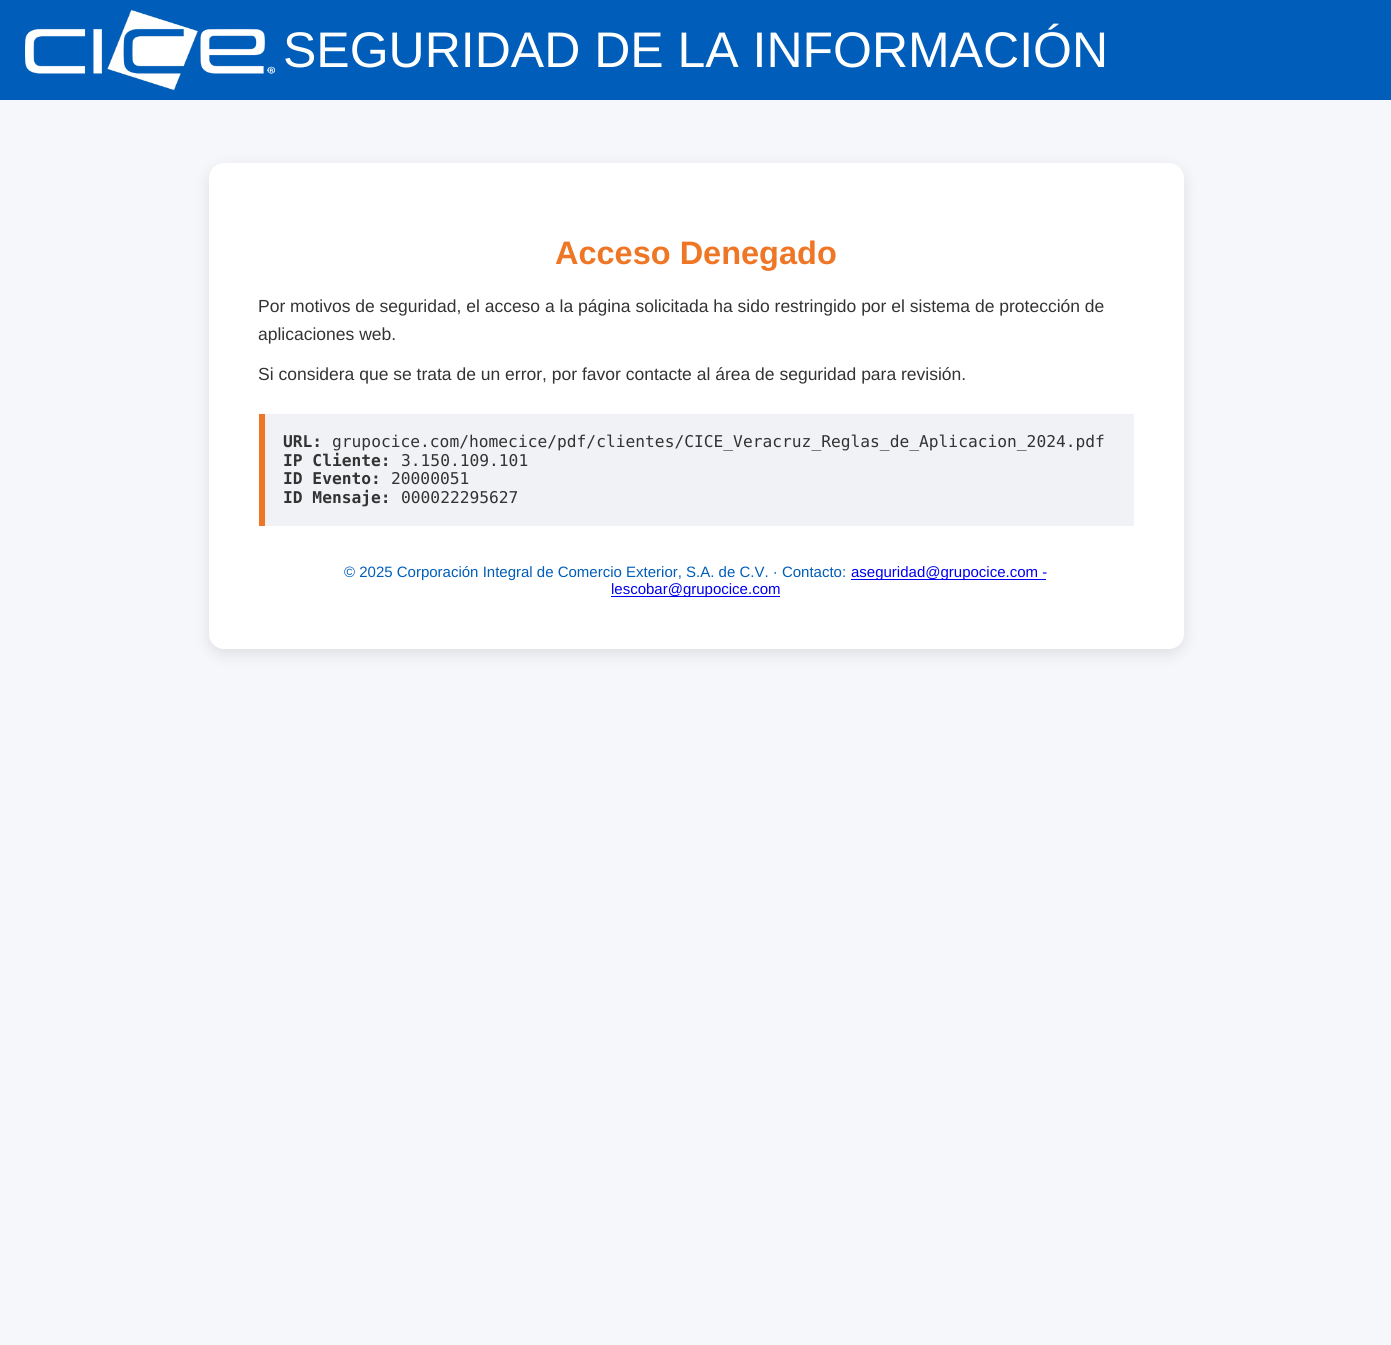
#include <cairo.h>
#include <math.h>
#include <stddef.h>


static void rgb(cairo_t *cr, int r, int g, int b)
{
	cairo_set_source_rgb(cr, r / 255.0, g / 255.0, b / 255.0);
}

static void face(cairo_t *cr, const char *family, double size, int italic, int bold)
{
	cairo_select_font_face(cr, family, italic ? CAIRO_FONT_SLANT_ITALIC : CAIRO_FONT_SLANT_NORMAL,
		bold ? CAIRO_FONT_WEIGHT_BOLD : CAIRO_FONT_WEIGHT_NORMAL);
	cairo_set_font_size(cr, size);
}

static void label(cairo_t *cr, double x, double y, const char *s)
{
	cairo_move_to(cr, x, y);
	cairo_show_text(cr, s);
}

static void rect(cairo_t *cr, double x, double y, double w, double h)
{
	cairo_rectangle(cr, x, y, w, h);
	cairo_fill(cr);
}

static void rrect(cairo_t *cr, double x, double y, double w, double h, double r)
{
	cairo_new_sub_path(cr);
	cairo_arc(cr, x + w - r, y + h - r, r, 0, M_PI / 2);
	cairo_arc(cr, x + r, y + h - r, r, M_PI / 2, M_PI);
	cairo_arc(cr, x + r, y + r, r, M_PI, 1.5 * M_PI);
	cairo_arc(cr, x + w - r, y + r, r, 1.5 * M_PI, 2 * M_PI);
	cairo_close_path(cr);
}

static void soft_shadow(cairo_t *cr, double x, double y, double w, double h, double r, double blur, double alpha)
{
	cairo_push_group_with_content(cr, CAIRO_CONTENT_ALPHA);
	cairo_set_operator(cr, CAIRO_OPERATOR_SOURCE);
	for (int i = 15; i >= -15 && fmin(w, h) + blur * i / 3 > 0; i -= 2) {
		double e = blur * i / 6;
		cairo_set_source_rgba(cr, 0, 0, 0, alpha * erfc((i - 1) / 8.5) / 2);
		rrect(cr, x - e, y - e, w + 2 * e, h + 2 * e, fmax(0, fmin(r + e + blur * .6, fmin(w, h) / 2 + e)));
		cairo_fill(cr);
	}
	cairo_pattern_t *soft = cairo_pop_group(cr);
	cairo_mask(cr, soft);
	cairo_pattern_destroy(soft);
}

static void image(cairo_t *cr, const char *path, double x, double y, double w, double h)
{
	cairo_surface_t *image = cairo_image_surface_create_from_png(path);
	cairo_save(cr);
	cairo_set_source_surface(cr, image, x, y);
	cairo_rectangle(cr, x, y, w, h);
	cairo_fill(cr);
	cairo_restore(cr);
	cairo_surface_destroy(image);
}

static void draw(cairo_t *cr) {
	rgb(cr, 245, 247, 250);
	cairo_paint(cr);
	rgb(cr, 0, 93, 185);
	rect(cr, 0, 0, 1391, 100);
	image(cr, "image0.png", 25, 10, 250, 80);
	face(cr, "Liberation Sans", 50, 0, 0);
	rgb(cr, 255, 255, 255);
	label(cr, 283, 67, "SEGURIDAD DE LA INFORMACIÓN");
	rgb(cr, 0, 0, 0);
	soft_shadow(cr, 209, 168, 975, 486, 15, 7.5, 0.1);
	rgb(cr, 255, 255, 255);
	rrect(cr, 209, 163, 975, 486, 15);
	cairo_fill(cr);
	face(cr, "Liberation Sans", 32.5, 0, 1);
	rgb(cr, 238, 118, 36);
	label(cr, 555, 264, "Acceso Denegado");
	face(cr, "Liberation Sans", 17.5, 0, 0);
	rgb(cr, 51, 51, 51);
	label(cr, 258, 312, "Por motivos de seguridad, el acceso a la página solicitada ha sido restringido por el sistema de protección de");
	label(cr, 258, 340, "aplicaciones web.");
	label(cr, 258, 380, "Si considera que se trata de un error, por favor contacte al área de seguridad para revisión.");
	rgb(cr, 240, 242, 245);
	rect(cr, 265, 414, 869, 112);
	rgb(cr, 238, 118, 36);
	rect(cr, 259, 414, 6, 112);
	face(cr, "DejaVu Sans Mono", 16.25, 0, 1);
	rgb(cr, 51, 51, 51);
	label(cr, 283, 447, "URL:");
	face(cr, "DejaVu Sans Mono", 16.25, 0, 0);
	label(cr, 332, 447, "grupocice.com/homecice/pdf/clientes/CICE_Veracruz_Reglas_de_Aplicacion_2024.pdf");
	face(cr, "DejaVu Sans Mono", 16.25, 0, 1);
	label(cr, 283, 466, "IP Cliente:");
	face(cr, "DejaVu Sans Mono", 16.25, 0, 0);
	label(cr, 401, 466, "3.150.109.101");
	face(cr, "DejaVu Sans Mono", 16.25, 0, 1);
	label(cr, 283, 484, "ID Evento:");
	face(cr, "DejaVu Sans Mono", 16.25, 0, 0);
	label(cr, 391, 484, "20000051");
	face(cr, "DejaVu Sans Mono", 16.25, 0, 1);
	label(cr, 283, 503, "ID Mensaje:");
	face(cr, "DejaVu Sans Mono", 16.25, 0, 0);
	label(cr, 401, 503, "000022295627");
	face(cr, "Liberation Sans", 15, 0, 0);
	rgb(cr, 0, 93, 185);
	label(cr, 344, 577, "© 2025 Corporación Integral de Comercio Exterior, S.A. de C.V. · Contacto:");
	rgb(cr, 0, 0, 238);
	rect(cr, 851, 579, 195, 1);
	label(cr, 851, 577, "aseguridad@grupocice.com -");
	rect(cr, 611, 596, 169, 1);
	label(cr, 611, 594, "lescobar@grupocice.com");
}

int main(void) {
	cairo_surface_t *surface = cairo_image_surface_create(CAIRO_FORMAT_RGB24, 1391, 1345);
	cairo_t *cr = cairo_create(surface);
	cairo_font_options_t *options = cairo_font_options_create();
	cairo_font_options_set_hint_metrics(options, CAIRO_HINT_METRICS_OFF);
	cairo_font_options_set_hint_style(options, CAIRO_HINT_STYLE_NONE);
	cairo_set_font_options(cr, options);
	cairo_set_miter_limit(cr, 4);
	draw(cr);
	cairo_surface_write_to_png(surface, "render.png");
	cairo_font_options_destroy(options);
	cairo_destroy(cr);
	cairo_surface_destroy(surface);
	return 0;
}
